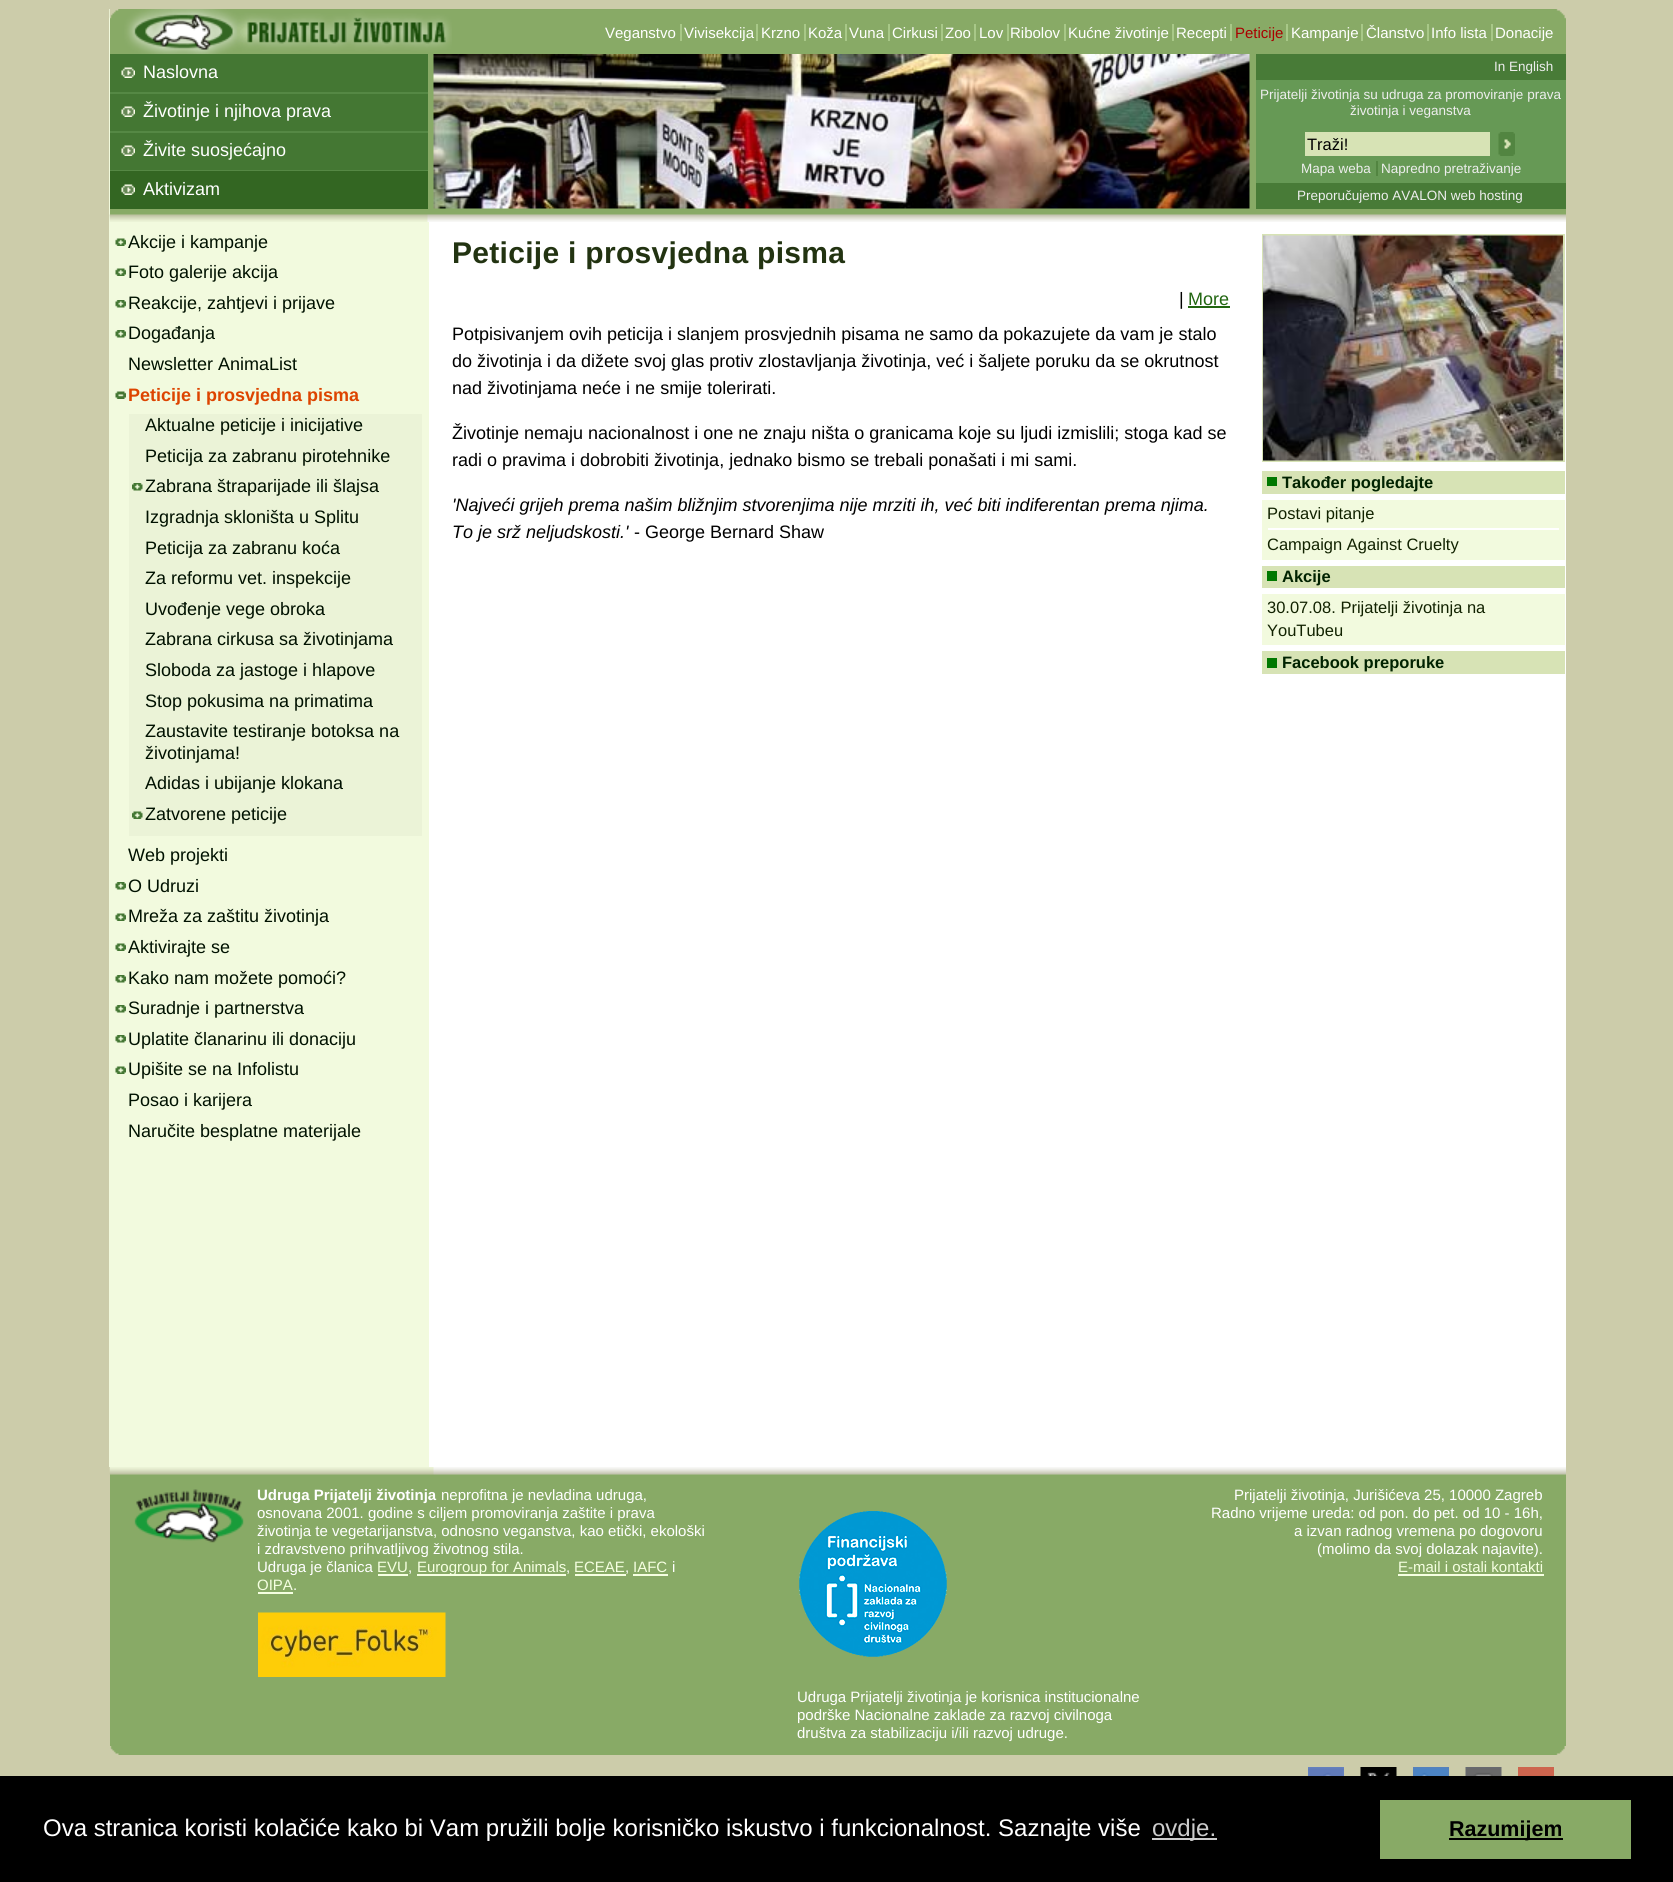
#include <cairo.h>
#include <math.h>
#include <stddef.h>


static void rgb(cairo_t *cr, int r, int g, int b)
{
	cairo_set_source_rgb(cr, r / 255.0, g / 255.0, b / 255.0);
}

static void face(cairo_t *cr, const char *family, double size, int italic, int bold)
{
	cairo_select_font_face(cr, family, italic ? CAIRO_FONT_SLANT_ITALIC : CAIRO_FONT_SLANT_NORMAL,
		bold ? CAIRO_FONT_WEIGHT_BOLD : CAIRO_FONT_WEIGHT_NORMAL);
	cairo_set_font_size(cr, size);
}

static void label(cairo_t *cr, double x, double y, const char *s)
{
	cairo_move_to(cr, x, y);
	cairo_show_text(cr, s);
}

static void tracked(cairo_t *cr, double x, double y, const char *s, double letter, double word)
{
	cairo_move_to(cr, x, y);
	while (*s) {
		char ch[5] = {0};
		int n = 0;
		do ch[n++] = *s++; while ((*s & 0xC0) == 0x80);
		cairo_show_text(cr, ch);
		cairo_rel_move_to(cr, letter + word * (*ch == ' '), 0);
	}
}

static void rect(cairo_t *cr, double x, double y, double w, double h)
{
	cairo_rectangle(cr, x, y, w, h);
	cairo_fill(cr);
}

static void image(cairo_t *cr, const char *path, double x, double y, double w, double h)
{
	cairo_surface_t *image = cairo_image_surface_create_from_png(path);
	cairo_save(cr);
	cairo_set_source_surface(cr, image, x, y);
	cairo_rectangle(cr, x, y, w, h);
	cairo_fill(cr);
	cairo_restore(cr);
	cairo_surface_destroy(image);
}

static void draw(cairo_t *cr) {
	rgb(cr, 204, 204, 170);
	cairo_paint(cr);
	rgb(cr, 255, 255, 255);
	rect(cr, 429, 222, 1137, 1245);
	rgb(cr, 242, 250, 222);
	rect(cr, 109, 9, 320, 1458);
	rgb(cr, 136, 170, 102);
	rect(cr, 110, 9, 1456, 206);
	image(cr, "image0.png", 109, 9, 1457, 213);
	image(cr, "image1.png", 118, 9, 334, 45);
	face(cr, "Liberation Sans", 15, 0, 0);
	rgb(cr, 255, 255, 255);
	label(cr, 605, 38, "Veganstvo");
	label(cr, 684, 38, "Vivisekcija");
	rgb(cr, 168, 200, 136);
	rect(cr, 680, 24, 2, 17);
	rgb(cr, 255, 255, 255);
	label(cr, 761, 38, "Krzno");
	rgb(cr, 168, 200, 136);
	rect(cr, 756, 24, 2, 17);
	rgb(cr, 255, 255, 255);
	label(cr, 808, 38, "Koža");
	rgb(cr, 168, 200, 136);
	rect(cr, 804, 24, 2, 17);
	rgb(cr, 255, 255, 255);
	label(cr, 849, 38, "Vuna");
	rgb(cr, 168, 200, 136);
	rect(cr, 845, 24, 2, 17);
	rgb(cr, 255, 255, 255);
	label(cr, 892, 38, "Cirkusi");
	rgb(cr, 168, 200, 136);
	rect(cr, 888, 24, 2, 17);
	rgb(cr, 255, 255, 255);
	label(cr, 945, 38, "Zoo");
	rgb(cr, 168, 200, 136);
	rect(cr, 941, 24, 2, 17);
	rect(cr, 974, 24, 2, 17);
	rgb(cr, 255, 255, 255);
	label(cr, 979, 38, "Lov");
	label(cr, 1010, 38, "Ribolov");
	rgb(cr, 168, 200, 136);
	rect(cr, 1007, 24, 2, 17);
	rect(cr, 1064, 24, 2, 17);
	rgb(cr, 255, 255, 255);
	label(cr, 1068, 38, "Kućne životinje");
	rgb(cr, 168, 200, 136);
	rect(cr, 1172, 24, 2, 17);
	rgb(cr, 255, 255, 255);
	label(cr, 1176, 38, "Recepti");
	rgb(cr, 168, 200, 136);
	rect(cr, 1230, 24, 2, 17);
	rgb(cr, 170, 0, 0);
	label(cr, 1235, 38, "Peticije");
	rgb(cr, 168, 200, 136);
	rect(cr, 1286, 24, 2, 17);
	rgb(cr, 255, 255, 255);
	label(cr, 1291, 38, "Kampanje");
	label(cr, 1366, 38, "Članstvo");
	rgb(cr, 168, 200, 136);
	rect(cr, 1361, 24, 2, 17);
	rgb(cr, 255, 255, 255);
	label(cr, 1431, 38, "Info lista");
	rgb(cr, 168, 200, 136);
	rect(cr, 1427, 24, 2, 17);
	rect(cr, 1491, 24, 2, 17);
	rgb(cr, 255, 255, 255);
	label(cr, 1495, 38, "Donacije");
	image(cr, "image2.png", 433, 54, 817, 155);
	rgb(cr, 68, 119, 51);
	rect(cr, 110, 54, 318, 116);
	image(cr, "image3.png", 121, 67, 14, 11);
	face(cr, "Liberation Sans", 18, 0, 0);
	rgb(cr, 255, 255, 255);
	label(cr, 143, 78, "Naslovna");
	rgb(cr, 85, 136, 68);
	rect(cr, 110, 92, 318, 2);
	image(cr, "image3.png", 121, 106, 14, 11);
	rgb(cr, 255, 255, 255);
	label(cr, 143, 117, "Životinje i njihova prava");
	rgb(cr, 85, 136, 68);
	rect(cr, 110, 131, 318, 2);
	image(cr, "image3.png", 121, 145, 14, 11);
	rgb(cr, 255, 255, 255);
	label(cr, 143, 156, "Živite suosjećajno");
	rgb(cr, 85, 136, 68);
	rect(cr, 110, 170, 318, 1);
	rgb(cr, 51, 102, 34);
	rect(cr, 110, 171, 318, 38);
	image(cr, "image4.png", 121, 184, 14, 11);
	rgb(cr, 255, 255, 255);
	label(cr, 143, 195, "Aktivizam");
	rgb(cr, 102, 153, 85);
	rect(cr, 1256, 80, 310, 103);
	rgb(cr, 72, 123, 55);
	rect(cr, 1256, 54, 310, 26);
	face(cr, "Liberation Sans", 13.5, 0, 0);
	rgb(cr, 238, 238, 238);
	label(cr, 1494, 71, "In English");
	label(cr, 1260, 99, "Prijatelji životinja su udruga za promoviranje prava");
	label(cr, 1350, 115, "životinja i veganstva");
	rgb(cr, 215, 227, 181);
	rect(cr, 1305, 132, 185, 24);
	face(cr, "Liberation Sans", 16.5, 0, 0);
	rgb(cr, 0, 0, 0);
	label(cr, 1307, 150, "Traži!");
	image(cr, "image5.png", 1498, 132, 17, 24);
	face(cr, "Liberation Sans", 13.5, 0, 0);
	rgb(cr, 238, 238, 238);
	label(cr, 1301, 173, "Mapa weba");
	label(cr, 1381, 173, "Napredno pretraživanje");
	rgb(cr, 82, 133, 65);
	rect(cr, 1376, 161, 2, 15);
	rgb(cr, 72, 123, 55);
	rect(cr, 1256, 183, 310, 26);
	rgb(cr, 238, 238, 238);
	label(cr, 1297, 200, "Preporučujemo AVALON web hosting");
	image(cr, "image6.png", 115, 238, 11, 8);
	face(cr, "Liberation Sans", 18, 0, 0);
	rgb(cr, 0, 17, 0);
	label(cr, 128, 248, "Akcije i kampanje");
	image(cr, "image6.png", 115, 268, 11, 8);
	label(cr, 128, 278, "Foto galerije akcija");
	image(cr, "image7.png", 115, 300, 11, 8);
	label(cr, 128, 309, "Reakcije, zahtjevi i prijave");
	image(cr, "image7.png", 115, 330, 11, 8);
	label(cr, 128, 339, "Događanja");
	label(cr, 128, 370, "Newsletter AnimaList");
	image(cr, "image8.png", 115, 391, 11, 8);
	face(cr, "Liberation Sans", 18, 0, 1);
	rgb(cr, 221, 68, 0);
	label(cr, 128, 401, "Peticije i prosvjedna pisma");
	rgb(cr, 235, 243, 215);
	rect(cr, 129, 414, 293, 422);
	face(cr, "Liberation Sans", 18, 0, 0);
	rgb(cr, 0, 17, 0);
	label(cr, 145, 431, "Aktualne peticije i inicijative");
	label(cr, 145, 462, "Peticija za zabranu pirotehnike");
	image(cr, "image9.png", 132, 483, 11, 8);
	label(cr, 145, 492, "Zabrana štraparijade ili šlajsa");
	label(cr, 145, 523, "Izgradnja skloništa u Splitu");
	label(cr, 145, 554, "Peticija za zabranu koća");
	label(cr, 145, 584, "Za reformu vet. inspekcije");
	label(cr, 145, 615, "Uvođenje vege obroka");
	label(cr, 145, 645, "Zabrana cirkusa sa životinjama");
	label(cr, 145, 676, "Sloboda za jastoge i hlapove");
	label(cr, 145, 707, "Stop pokusima na primatima");
	label(cr, 145, 737, "Zaustavite testiranje botoksa na");
	label(cr, 145, 759, "životinjama!");
	label(cr, 145, 789, "Adidas i ubijanje klokana");
	image(cr, "image10.png", 132, 811, 11, 8);
	label(cr, 145, 820, "Zatvorene peticije");
	label(cr, 128, 861, "Web projekti");
	image(cr, "image7.png", 115, 882, 11, 8);
	label(cr, 128, 892, "O Udruzi");
	image(cr, "image6.png", 115, 913, 11, 8);
	label(cr, 128, 922, "Mreža za zaštitu životinja");
	image(cr, "image6.png", 115, 943, 11, 8);
	label(cr, 128, 953, "Aktivirajte se");
	image(cr, "image7.png", 115, 975, 11, 8);
	label(cr, 128, 984, "Kako nam možete pomoći?");
	image(cr, "image7.png", 115, 1005, 11, 8);
	label(cr, 128, 1014, "Suradnje i partnerstva");
	image(cr, "image7.png", 115, 1035, 11, 8);
	label(cr, 128, 1045, "Uplatite članarinu ili donaciju");
	image(cr, "image6.png", 115, 1066, 11, 8);
	label(cr, 128, 1075, "Upišite se na Infolistu");
	label(cr, 128, 1106, "Posao i karijera");
	label(cr, 128, 1137, "Naručite besplatne materijale");
	face(cr, "Liberation Sans", 30, 0, 1);
	rgb(cr, 34, 51, 17);
	tracked(cr, 452, 263, "Peticije i prosvjedna pisma", 0.3, 0);
	face(cr, "Liberation Sans", 18, 0, 0);
	rgb(cr, 0, 0, 0);
	label(cr, 1179, 305, "|");
	rgb(cr, 34, 102, 17);
	label(cr, 1188, 305, "More");
	rect(cr, 1188, 306, 42, 2);
	rgb(cr, 0, 0, 0);
	label(cr, 452, 340, "Potpisivanjem ovih peticija i slanjem prosvjednih pisama ne samo da pokazujete da vam je stalo");
	label(cr, 452, 367, "do životinja i da dižete svoj glas protiv zlostavljanja životinja, već i šaljete poruku da se okrutnost");
	label(cr, 452, 394, "nad životinjama neće i ne smije tolerirati.");
	label(cr, 452, 439, "Životinje nemaju nacionalnost i one ne znaju ništa o granicama koje su ljudi izmislili; stoga kad se");
	label(cr, 452, 466, "radi o pravima i dobrobiti životinja, jednako bismo se trebali ponašati i mi sami.");
	face(cr, "Liberation Sans", 18, 1, 0);
	label(cr, 452, 511, "'Najveći grijeh prema našim bližnjim stvorenjima nije mrziti ih, već biti indiferentan prema njima.");
	label(cr, 452, 538, "To je srž neljudskosti.'");
	face(cr, "Liberation Sans", 18, 0, 0);
	label(cr, 634, 538, "- George Bernard Shaw");
	cairo_rectangle(cr, 1263, 235, 301, 226);
	rgb(cr, 215, 227, 181);
	cairo_stroke(cr);
	image(cr, "image11.png", 1263, 235, 300, 226);
	rect(cr, 1262, 471, 303, 23);
	rgb(cr, 0, 120, 0);
	rect(cr, 1267, 477, 10, 9);
	face(cr, "Liberation Sans", 16.5, 0, 1);
	rgb(cr, 0, 34, 0);
	label(cr, 1282, 488, "Također pogledajte");
	rgb(cr, 242, 250, 222);
	rect(cr, 1262, 500, 303, 60);
	face(cr, "Liberation Sans", 16.5, 0, 0);
	rgb(cr, 17, 34, 0);
	label(cr, 1267, 519, "Postavi pitanje");
	rgb(cr, 255, 255, 255);
	rect(cr, 1268, 528, 291, 2);
	rgb(cr, 17, 34, 0);
	label(cr, 1267, 550, "Campaign Against Cruelty");
	rgb(cr, 215, 227, 181);
	rect(cr, 1262, 566, 303, 22);
	rgb(cr, 0, 120, 0);
	rect(cr, 1267, 571, 10, 10);
	face(cr, "Liberation Sans", 16.5, 0, 1);
	rgb(cr, 0, 34, 0);
	label(cr, 1282, 582, "Akcije");
	rgb(cr, 242, 250, 222);
	rect(cr, 1262, 594, 303, 51);
	face(cr, "Liberation Sans", 16.5, 0, 0);
	rgb(cr, 17, 34, 0);
	label(cr, 1267, 613, "30.07.08. Prijatelji životinja na");
	label(cr, 1267, 636, "YouTubeu");
	rgb(cr, 215, 227, 181);
	rect(cr, 1262, 651, 303, 23);
	rgb(cr, 0, 120, 0);
	rect(cr, 1267, 658, 10, 10);
	face(cr, "Liberation Sans", 16.5, 0, 1);
	rgb(cr, 0, 34, 0);
	label(cr, 1282, 668, "Facebook preporuke");
	rgb(cr, 136, 170, 102);
	rect(cr, 110, 1474, 1456, 281);
	image(cr, "image12.png", 110, 1746, 1456, 9);
	image(cr, "image13.png", 109, 1467, 1457, 8);
	image(cr, "image14.png", 134, 1489, 110, 54);
	face(cr, "Liberation Sans", 15, 0, 1);
	rgb(cr, 255, 255, 255);
	label(cr, 257, 1500, "Udruga Prijatelji životinja");
	face(cr, "Liberation Sans", 15, 0, 0);
	label(cr, 441, 1500, "neprofitna je nevladina udruga,");
	label(cr, 257, 1518, "osnovana 2001. godine s ciljem promoviranja zaštite i prava");
	label(cr, 257, 1536, "životinja te vegetarijanstva, odnosno veganstva, kao etički, ekološki");
	label(cr, 257, 1554, "i zdravstveno prihvatljivog životnog stila.");
	label(cr, 257, 1572, "Udruga je članica");
	rgb(cr, 245, 255, 225);
	label(cr, 377, 1572, "EVU");
	rect(cr, 378, 1574, 30, 2);
	rgb(cr, 255, 255, 255);
	label(cr, 408, 1572, ",");
	rgb(cr, 245, 255, 225);
	rect(cr, 417, 1574, 149, 2);
	label(cr, 417, 1572, "Eurogroup for Animals");
	rgb(cr, 255, 255, 255);
	label(cr, 566, 1572, ",");
	rgb(cr, 245, 255, 225);
	label(cr, 574, 1572, "ECEAE");
	rect(cr, 575, 1574, 51, 2);
	rgb(cr, 255, 255, 255);
	label(cr, 625, 1572, ",");
	rgb(cr, 245, 255, 225);
	label(cr, 633, 1572, "IAFC");
	rect(cr, 633, 1574, 35, 2);
	rgb(cr, 255, 255, 255);
	label(cr, 672, 1572, "i");
	rgb(cr, 245, 255, 225);
	label(cr, 257, 1590, "OIPA");
	rect(cr, 258, 1592, 35, 2);
	rgb(cr, 255, 255, 255);
	label(cr, 293, 1590, ".");
	image(cr, "image15.png", 258, 1612, 188, 65);
	label(cr, 1234, 1500, "Prijatelji životinja, Jurišićeva 25, 10000 Zagreb");
	label(cr, 1211, 1518, "Radno vrijeme ureda: od pon. do pet. od 10 - 16h,");
	label(cr, 1294, 1536, "a izvan radnog vremena po dogovoru");
	label(cr, 1317, 1554, "(molimo da svoj dolazak najavite).");
	rgb(cr, 245, 255, 225);
	label(cr, 1398, 1572, "E-mail i ostali kontakti");
	rect(cr, 1398, 1574, 146, 2);
	image(cr, "image16.png", 799, 1511, 148, 146);
	rgb(cr, 255, 255, 255);
	label(cr, 797, 1702, "Udruga Prijatelji životinja je korisnica institucionalne");
	label(cr, 797, 1720, "podrške Nacionalne zaklade za razvoj civilnoga");
	label(cr, 797, 1738, "društva za stabilizaciju i/ili razvoj udruge.");
	image(cr, "image17.png", 1308, 1767, 36, 9);
	image(cr, "image18.png", 1360, 1767, 37, 9);
	image(cr, "image19.png", 1413, 1767, 36, 9);
	image(cr, "image20.png", 1465, 1767, 37, 9);
	image(cr, "image21.png", 1518, 1767, 36, 9);
	rgb(cr, 0, 0, 0);
	rect(cr, 0, 1776, 1673, 106);
	face(cr, "Liberation Sans", 24, 0, 0);
	rgb(cr, 255, 255, 255);
	label(cr, 43, 1836, "Ova stranica koristi kolačiće kako bi Vam pružili bolje korisničko iskustvo i funkcionalnost. Saznajte više");
	rgb(cr, 204, 204, 204);
	rect(cr, 1152, 1838, 65, 2);
	label(cr, 1152, 1836, "ovdje.");
	rgb(cr, 136, 170, 102);
	rect(cr, 1380, 1800, 251, 59);
	rgb(cr, 0, 0, 0);
	rect(cr, 1449, 1838, 114, 2);
	face(cr, "Liberation Sans", 21.5, 0, 1);
	label(cr, 1449, 1836, "Razumijem");
}

int main(void) {
	cairo_surface_t *surface = cairo_image_surface_create(CAIRO_FORMAT_RGB24, 1673, 1882);
	cairo_t *cr = cairo_create(surface);
	cairo_font_options_t *options = cairo_font_options_create();
	cairo_font_options_set_hint_metrics(options, CAIRO_HINT_METRICS_OFF);
	cairo_font_options_set_hint_style(options, CAIRO_HINT_STYLE_NONE);
	cairo_set_font_options(cr, options);
	cairo_set_miter_limit(cr, 4);
	draw(cr);
	cairo_surface_write_to_png(surface, "render.png");
	cairo_font_options_destroy(options);
	cairo_destroy(cr);
	cairo_surface_destroy(surface);
	return 0;
}
